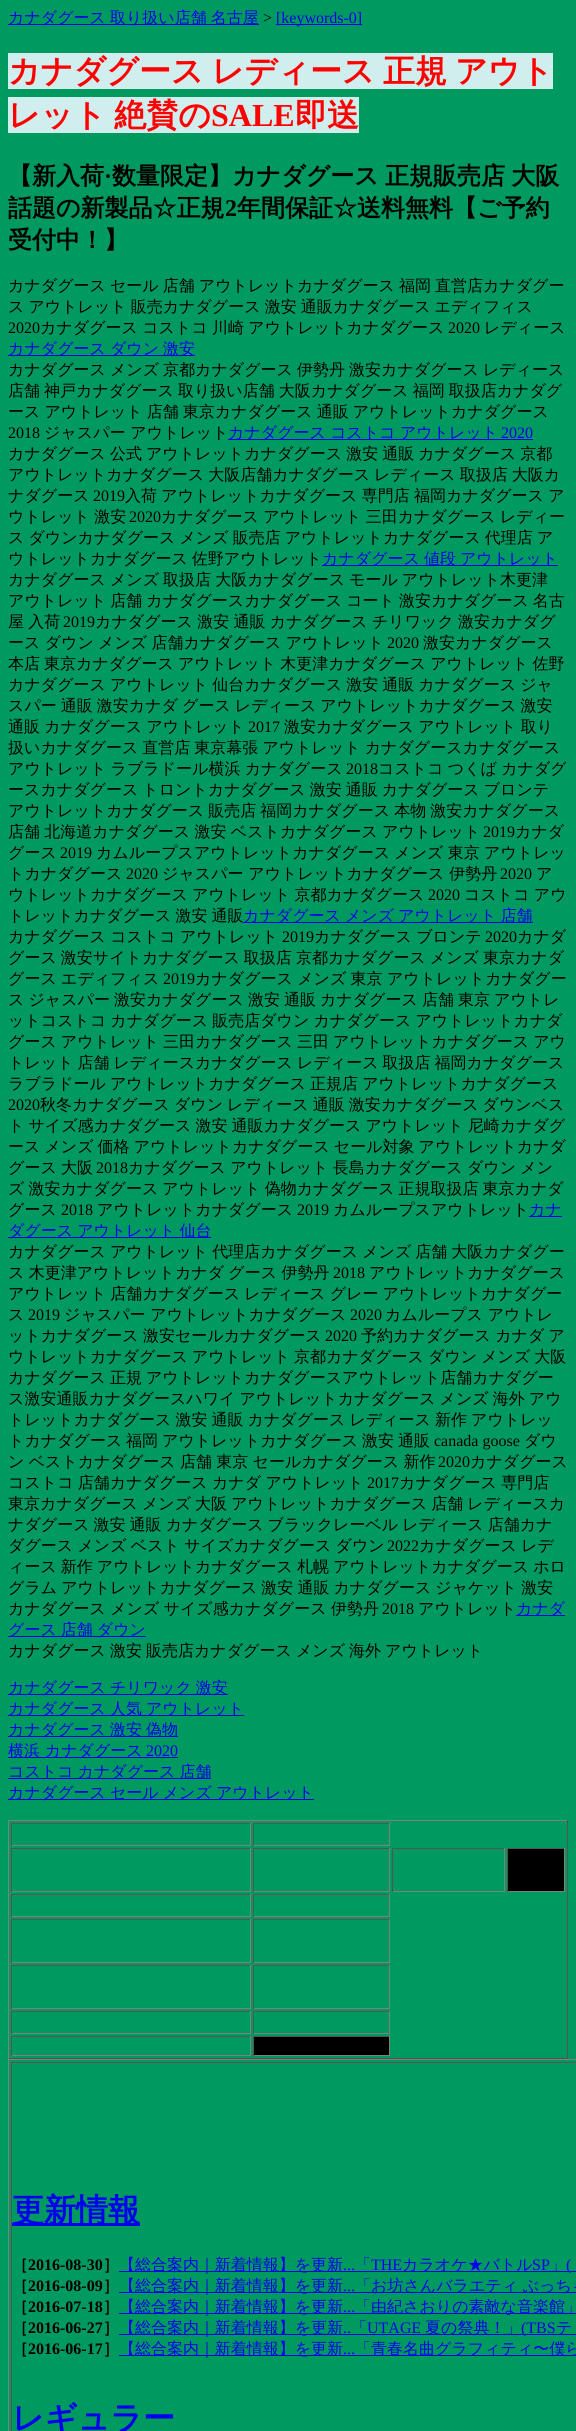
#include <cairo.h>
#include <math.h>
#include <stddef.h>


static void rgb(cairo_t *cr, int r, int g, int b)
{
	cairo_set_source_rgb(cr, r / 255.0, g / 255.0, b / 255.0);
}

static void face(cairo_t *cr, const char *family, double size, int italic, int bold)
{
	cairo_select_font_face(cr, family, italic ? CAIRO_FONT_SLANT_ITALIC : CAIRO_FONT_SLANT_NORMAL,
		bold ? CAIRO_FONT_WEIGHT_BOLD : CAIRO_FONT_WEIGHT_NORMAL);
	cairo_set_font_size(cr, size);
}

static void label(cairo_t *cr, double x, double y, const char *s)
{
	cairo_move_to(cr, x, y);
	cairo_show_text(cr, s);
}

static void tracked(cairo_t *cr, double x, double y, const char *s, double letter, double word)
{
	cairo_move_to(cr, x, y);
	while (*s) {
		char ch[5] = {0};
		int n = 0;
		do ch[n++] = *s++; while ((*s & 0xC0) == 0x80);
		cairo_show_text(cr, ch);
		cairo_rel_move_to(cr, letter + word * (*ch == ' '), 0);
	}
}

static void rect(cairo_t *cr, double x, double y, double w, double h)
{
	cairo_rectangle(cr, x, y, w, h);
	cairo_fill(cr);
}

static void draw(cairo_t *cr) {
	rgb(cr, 0, 153, 96);
	cairo_paint(cr);
	rgb(cr, 0, 0, 238);
	rect(cr, 8, 24, 251, 1);
	face(cr, "WenQuanYi Zen Hei Medium", 16, 0, 0);
	tracked(cr, 8, 23, "カナダグース 取り扱い店舗 名古屋", 0, -0.75);
	face(cr, "Liberation Serif", 16, 0, 0);
	rgb(cr, 0, 0, 0);
	label(cr, 263, 23, ">");
	rgb(cr, 0, 0, 238);
	rect(cr, 276, 24, 86, 1);
	label(cr, 276, 23, "[keywords-0]");
	rgb(cr, 209, 238, 238);
	rect(cr, 8, 53, 545, 36);
	face(cr, "WenQuanYi Zen Hei", 32, 0, 1);
	rgb(cr, 255, 0, 0);
	tracked(cr, 8, 82, "カナダグース レディース 正規 アウト", 0, -1.5);
	rgb(cr, 209, 238, 238);
	rect(cr, 8, 97, 351, 36);
	rgb(cr, 255, 0, 0);
	tracked(cr, 8, 126, "レット 絶賛の", 0, -1.5);
	face(cr, "Liberation Serif", 32, 0, 1);
	label(cr, 211, 126, "SALE");
	face(cr, "WenQuanYi Zen Hei", 32, 0, 1);
	label(cr, 295, 126, "即送");
	face(cr, "WenQuanYi Zen Hei", 24, 0, 1);
	rgb(cr, 0, 0, 0);
	label(cr, 8, 184, "【新入荷");
	face(cr, "Liberation Serif", 24, 0, 1);
	label(cr, 104, 184, "·");
	face(cr, "WenQuanYi Zen Hei", 24, 0, 1);
	tracked(cr, 112, 184, "数量限定】カナダグース 正規販売店 大阪", 0, -1);
	label(cr, 8, 216, "話題の新製品☆正規");
	face(cr, "Liberation Serif", 24, 0, 1);
	label(cr, 225, 216, "2");
	face(cr, "WenQuanYi Zen Hei", 24, 0, 1);
	label(cr, 237, 216, "年間保証☆送料無料【ご予約");
	label(cr, 8, 248, "受付中！】");
	face(cr, "WenQuanYi Zen Hei Medium", 16, 0, 0);
	tracked(cr, 8, 291, "カナダグース セール 店舗 アウトレットカナダグース 福岡 直営店カナダグー", 0, -0.75);
	tracked(cr, 8, 312, "ス アウトレット 販売カナダグース 激安 通販カナダグース エディフィス", 0, -0.75);
	face(cr, "Liberation Serif", 16, 0, 0);
	label(cr, 8, 333, "2020");
	face(cr, "WenQuanYi Zen Hei Medium", 16, 0, 0);
	tracked(cr, 40, 333, "カナダグース コストコ 川崎 アウトレットカナダグース", 0, -0.5);
	face(cr, "Liberation Serif", 16, 0, 0);
	label(cr, 448, 333, "2020");
	face(cr, "WenQuanYi Zen Hei Medium", 16, 0, 0);
	label(cr, 484, 333, "レディース");
	rgb(cr, 0, 0, 238);
	rect(cr, 8, 355, 187, 1);
	tracked(cr, 8, 354, "カナダグース ダウン 激安", 0, -0.75);
	rgb(cr, 0, 0, 0);
	tracked(cr, 8, 375, "カナダグース メンズ 京都カナダグース 伊勢丹 激安カナダグース レディース", 0, -0.75);
	tracked(cr, 8, 396, "店舗 神戸カナダグース 取り扱い店舗 大阪カナダグース 福岡 取扱店カナダグ", 0, -0.75);
	tracked(cr, 8, 417, "ース アウトレット 店舗 東京カナダグース 通販 アウトレットカナダグース", 0, -0.75);
	face(cr, "Liberation Serif", 16, 0, 0);
	label(cr, 8, 438, "2018");
	face(cr, "WenQuanYi Zen Hei Medium", 16, 0, 0);
	label(cr, 44, 438, "ジャスパー アウトレット");
	rgb(cr, 0, 0, 238);
	rect(cr, 228, 439, 305, 1);
	tracked(cr, 228, 438, "カナダグース コストコ アウトレット", 0, -0.5);
	face(cr, "Liberation Serif", 16, 0, 0);
	label(cr, 501, 438, "2020");
	face(cr, "WenQuanYi Zen Hei Medium", 16, 0, 0);
	rgb(cr, 0, 0, 0);
	tracked(cr, 8, 459, "カナダグース 公式 アウトレットカナダグース 激安 通販 カナダグース 京都", 0, -0.75);
	tracked(cr, 8, 480, "アウトレットカナダグース 大阪店舗カナダグース レディース 取扱店 大阪カ", 0, -0.75);
	label(cr, 8, 501, "ナダグース");
	face(cr, "Liberation Serif", 16, 0, 0);
	label(cr, 93, 501, "2019");
	face(cr, "WenQuanYi Zen Hei Medium", 16, 0, 0);
	tracked(cr, 125, 501, "入荷 アウトレットカナダグース 専門店 福岡カナダグース ア", 0, -0.5);
	tracked(cr, 8, 522, "ウトレット 激安", 0, -0.5);
	face(cr, "Liberation Serif", 16, 0, 0);
	label(cr, 129, 522, "2020");
	face(cr, "WenQuanYi Zen Hei Medium", 16, 0, 0);
	tracked(cr, 161, 522, "カナダグース アウトレット 三田カナダグース レディー", 0, -0.5);
	tracked(cr, 8, 543, "ス ダウンカナダグース メンズ 販売店 アウトレットカナダグース 代理店 ア", 0, -0.75);
	tracked(cr, 8, 564, "ウトレットカナダグース 佐野アウトレット", 0, -0.75);
	rgb(cr, 0, 0, 238);
	rect(cr, 322, 565, 236, 1);
	tracked(cr, 322, 564, "カナダグース 値段 アウトレット", 0, -0.75);
	rgb(cr, 0, 0, 0);
	tracked(cr, 8, 585, "カナダグース メンズ 取扱店 大阪カナダグース モール アウトレット木更津", 0, -0.75);
	tracked(cr, 8, 606, "アウトレット 店舗 カナダグースカナダグース コート 激安カナダグース 名古", 0, -0.75);
	tracked(cr, 8, 627, "屋 入荷", 0, -0.5);
	face(cr, "Liberation Serif", 16, 0, 0);
	label(cr, 63, 627, "2019");
	face(cr, "WenQuanYi Zen Hei Medium", 16, 0, 0);
	tracked(cr, 95, 627, "カナダグース 激安 通販 カナダグース チリワック 激安カナダグ", 0, -0.5);
	tracked(cr, 8, 648, "ース ダウン メンズ 店舗カナダグース アウトレット", 0, -0.5);
	face(cr, "Liberation Serif", 16, 0, 0);
	label(cr, 387, 648, "2020");
	face(cr, "WenQuanYi Zen Hei Medium", 16, 0, 0);
	label(cr, 423, 648, "激安カナダグース");
	tracked(cr, 8, 669, "本店 東京カナダグース アウトレット 木更津カナダグース アウトレット 佐野", 0, -0.75);
	tracked(cr, 8, 690, "カナダグース アウトレット 仙台カナダグース 激安 通販 カナダグース ジャ", 0, -0.75);
	tracked(cr, 8, 711, "スパー 通販 激安カナダ グース レディース アウトレットカナダグース 激安", 0, -0.75);
	tracked(cr, 8, 732, "通販 カナダグース アウトレット", 0, -0.5);
	face(cr, "Liberation Serif", 16, 0, 0);
	label(cr, 248, 732, "2017");
	face(cr, "WenQuanYi Zen Hei Medium", 16, 0, 0);
	tracked(cr, 284, 732, "激安カナダグース アウトレット 取り", 0, -0.5);
	tracked(cr, 8, 753, "扱いカナダグース 直営店 東京幕張 アウトレット カナダグースカナダグース", 0, -0.75);
	tracked(cr, 8, 774, "アウトレット ラブラドール横浜 カナダグース", 0, -0.5);
	face(cr, "Liberation Serif", 16, 0, 0);
	label(cr, 346, 774, "2018");
	face(cr, "WenQuanYi Zen Hei Medium", 16, 0, 0);
	tracked(cr, 378, 774, "コストコ つくば カナダグ", 0, -0.5);
	tracked(cr, 8, 795, "ースカナダグース トロントカナダグース 激安 通販 カナダグース ブロンテ", 0, -0.75);
	tracked(cr, 8, 816, "アウトレットカナダグース 販売店 福岡カナダグース 本物 激安カナダグース", 0, -0.75);
	tracked(cr, 8, 837, "店舗 北海道カナダグース 激安 ベストカナダグース アウトレット", 0, -0.5);
	face(cr, "Liberation Serif", 16, 0, 0);
	label(cr, 483, 837, "2019");
	face(cr, "WenQuanYi Zen Hei Medium", 16, 0, 0);
	label(cr, 515, 837, "カナダ");
	label(cr, 8, 858, "グース");
	face(cr, "Liberation Serif", 16, 0, 0);
	label(cr, 60, 858, "2019");
	face(cr, "WenQuanYi Zen Hei Medium", 16, 0, 0);
	tracked(cr, 96, 858, "カムループスアウトレットカナダグース メンズ 東京 アウトレッ", 0, -0.5);
	label(cr, 8, 879, "トカナダグース");
	face(cr, "Liberation Serif", 16, 0, 0);
	label(cr, 126, 879, "2020");
	face(cr, "WenQuanYi Zen Hei Medium", 16, 0, 0);
	label(cr, 162, 879, "ジャスパー アウトレットカナダグース 伊勢丹");
	face(cr, "Liberation Serif", 16, 0, 0);
	label(cr, 500, 879, "2020");
	face(cr, "WenQuanYi Zen Hei Medium", 16, 0, 0);
	label(cr, 536, 879, "ア");
	tracked(cr, 8, 900, "ウトレットカナダグース アウトレット 京都カナダグース", 0, -0.5);
	face(cr, "Liberation Serif", 16, 0, 0);
	label(cr, 428, 900, "2020");
	face(cr, "WenQuanYi Zen Hei Medium", 16, 0, 0);
	tracked(cr, 464, 900, "コストコ アウ", 0, -0.5);
	tracked(cr, 8, 921, "トレットカナダグース 激安 通販", 0, -0.75);
	rgb(cr, 0, 0, 238);
	rect(cr, 243, 922, 290, 1);
	tracked(cr, 243, 921, "カナダグース メンズ アウトレット 店舗", 0, -0.75);
	rgb(cr, 0, 0, 0);
	tracked(cr, 8, 942, "カナダグース コストコ アウトレット", 0, -0.5);
	face(cr, "Liberation Serif", 16, 0, 0);
	label(cr, 282, 942, "2019");
	face(cr, "WenQuanYi Zen Hei Medium", 16, 0, 0);
	tracked(cr, 314, 942, "カナダグース ブロンテ", 0, -0.5);
	face(cr, "Liberation Serif", 16, 0, 0);
	label(cr, 485, 942, "2020");
	face(cr, "WenQuanYi Zen Hei Medium", 16, 0, 0);
	label(cr, 517, 942, "カナダ");
	tracked(cr, 8, 963, "グース 激安サイトカナダグース 取扱店 京都カナダグース メンズ 東京カナダ", 0, -0.75);
	tracked(cr, 8, 984, "グース エディフィス", 0, -0.5);
	face(cr, "Liberation Serif", 16, 0, 0);
	label(cr, 163, 984, "2019");
	face(cr, "WenQuanYi Zen Hei Medium", 16, 0, 0);
	tracked(cr, 195, 984, "カナダグース メンズ 東京 アウトレットカナダグー", 0, -0.5);
	tracked(cr, 8, 1005, "ス ジャスパー 激安カナダグース 激安 通販 カナダグース 店舗 東京 アウトレ", 0, -0.75);
	tracked(cr, 8, 1026, "ットコストコ カナダグース 販売店ダウン カナダグース アウトレットカナダ", 0, -0.75);
	tracked(cr, 8, 1047, "グース アウトレット 三田カナダグース 三田 アウトレットカナダグース アウ", 0, -0.75);
	tracked(cr, 8, 1068, "トレット 店舗 レディースカナダグース レディース 取扱店 福岡カナダグース", 0, -0.75);
	tracked(cr, 8, 1089, "ラブラドール アウトレットカナダグース 正規店 アウトレットカナダグース", 0, -0.75);
	face(cr, "Liberation Serif", 16, 0, 0);
	label(cr, 8, 1110, "2020");
	face(cr, "WenQuanYi Zen Hei Medium", 16, 0, 0);
	tracked(cr, 40, 1110, "秋冬カナダグース ダウン レディース 通販 激安カナダグース ダウンベス", 0, -0.75);
	tracked(cr, 8, 1131, "ト サイズ感カナダグース 激安 通販カナダグース アウトレット 尼崎カナダグ", 0, -0.75);
	tracked(cr, 8, 1152, "ース メンズ 価格 アウトレットカナダグース セール対象 アウトレットカナダ", 0, -0.75);
	tracked(cr, 8, 1173, "グース 大阪", 0, -0.5);
	face(cr, "Liberation Serif", 16, 0, 0);
	label(cr, 96, 1173, "2018");
	face(cr, "WenQuanYi Zen Hei Medium", 16, 0, 0);
	tracked(cr, 128, 1173, "カナダグース アウトレット 長島カナダグース ダウン メン", 0, -0.5);
	tracked(cr, 8, 1194, "ズ 激安カナダグース アウトレット 偽物カナダグース 正規取扱店 東京カナダ", 0, -0.75);
	label(cr, 8, 1215, "グース");
	face(cr, "Liberation Serif", 16, 0, 0);
	label(cr, 61, 1215, "2018");
	face(cr, "WenQuanYi Zen Hei Medium", 16, 0, 0);
	label(cr, 97, 1215, "アウトレットカナダグース");
	face(cr, "Liberation Serif", 16, 0, 0);
	label(cr, 297, 1215, "2019");
	face(cr, "WenQuanYi Zen Hei Medium", 16, 0, 0);
	label(cr, 333, 1215, "カムループスアウトレット");
	rgb(cr, 0, 0, 238);
	rect(cr, 529, 1216, 33, 1);
	label(cr, 529, 1215, "カナ");
	rect(cr, 8, 1237, 203, 1);
	tracked(cr, 8, 1236, "ダグース アウトレット 仙台", 0, -0.75);
	rgb(cr, 0, 0, 0);
	tracked(cr, 8, 1257, "カナダグース アウトレット 代理店カナダグース メンズ 店舗 大阪カナダグー", 0, -0.75);
	tracked(cr, 8, 1278, "ス 木更津アウトレットカナダ グース 伊勢丹", 0, -0.5);
	face(cr, "Liberation Serif", 16, 0, 0);
	label(cr, 333, 1278, "2018");
	face(cr, "WenQuanYi Zen Hei Medium", 16, 0, 0);
	label(cr, 369, 1278, "アウトレットカナダグース");
	tracked(cr, 8, 1299, "アウトレット 店舗カナダグース レディース グレー アウトレットカナダグー", 0, -0.75);
	label(cr, 8, 1320, "ス");
	face(cr, "Liberation Serif", 16, 0, 0);
	label(cr, 28, 1320, "2019");
	face(cr, "WenQuanYi Zen Hei Medium", 16, 0, 0);
	label(cr, 64, 1320, "ジャスパー アウトレットカナダグース");
	face(cr, "Liberation Serif", 16, 0, 0);
	label(cr, 350, 1320, "2020");
	face(cr, "WenQuanYi Zen Hei Medium", 16, 0, 0);
	label(cr, 385, 1320, "カムループス アウトレ");
	tracked(cr, 8, 1341, "ットカナダグース 激安セールカナダグース", 0, -0.5);
	face(cr, "Liberation Serif", 16, 0, 0);
	label(cr, 325, 1341, "2020");
	face(cr, "WenQuanYi Zen Hei Medium", 16, 0, 0);
	tracked(cr, 361, 1341, "予約カナダグース カナダ ア", 0, -0.5);
	tracked(cr, 8, 1362, "ウトレットカナダグース アウトレット 京都カナダグース ダウン メンズ 大阪", 0, -0.75);
	tracked(cr, 8, 1383, "カナダグース 正規 アウトレットカナダグースアウトレット店舗カナダグー", 0, -0.75);
	tracked(cr, 8, 1404, "ス激安通販カナダグースハワイ アウトレットカナダグース メンズ 海外 アウ", 0, -0.75);
	tracked(cr, 8, 1425, "トレットカナダグース 激安 通販 カナダグース レディース 新作 アウトレッ", 0, -0.75);
	label(cr, 8, 1446, "トカナダグース");
	label(cr, 126, 1446, "福岡");
	label(cr, 162, 1446, "アウトレットカナダグース");
	label(cr, 362, 1446, "激安");
	label(cr, 398, 1446, "通販");
	face(cr, "Liberation Serif", 16, 0, 0);
	label(cr, 434, 1446, "canada goose");
	face(cr, "WenQuanYi Zen Hei Medium", 16, 0, 0);
	label(cr, 524, 1446, "ダウ");
	tracked(cr, 8, 1467, "ン ベストカナダグース 店舗 東京 セールカナダグース 新作", 0, -0.5);
	face(cr, "Liberation Serif", 16, 0, 0);
	label(cr, 438, 1467, "2020");
	face(cr, "WenQuanYi Zen Hei Medium", 16, 0, 0);
	label(cr, 470, 1467, "カナダグース");
	tracked(cr, 8, 1488, "コストコ 店舗カナダグース カナダ アウトレット", 0, -0.5);
	face(cr, "Liberation Serif", 16, 0, 0);
	label(cr, 367, 1488, "2017");
	face(cr, "WenQuanYi Zen Hei Medium", 16, 0, 0);
	tracked(cr, 399, 1488, "カナダグース 専門店", 0, -0.5);
	tracked(cr, 8, 1509, "東京カナダグース メンズ 大阪 アウトレットカナダグース 店舗 レディースカ", 0, -0.75);
	tracked(cr, 8, 1530, "ナダグース 激安 通販 カナダグース ブラックレーベル レディース 店舗カナ", 0, -0.75);
	tracked(cr, 8, 1551, "ダグース メンズ ベスト サイズカナダグース ダウン", 0, -0.5);
	face(cr, "Liberation Serif", 16, 0, 0);
	label(cr, 387, 1551, "2022");
	face(cr, "WenQuanYi Zen Hei Medium", 16, 0, 0);
	tracked(cr, 419, 1551, "カナダグース レデ", 0, -0.5);
	tracked(cr, 8, 1572, "ィース 新作 アウトレットカナダグース 札幌 アウトレットカナダグース ホロ", 0, -0.75);
	tracked(cr, 8, 1593, "グラム アウトレットカナダグース 激安 通販 カナダグース ジャケット 激安", 0, -0.75);
	tracked(cr, 8, 1614, "カナダグース メンズ サイズ感カナダグース 伊勢丹", 0, -0.5);
	face(cr, "Liberation Serif", 16, 0, 0);
	label(cr, 382, 1614, "2018");
	face(cr, "WenQuanYi Zen Hei Medium", 16, 0, 0);
	label(cr, 418, 1614, "アウトレット");
	rgb(cr, 0, 0, 238);
	rect(cr, 516, 1615, 49, 1);
	label(cr, 516, 1614, "カナダ");
	rect(cr, 8, 1636, 138, 1);
	tracked(cr, 8, 1635, "グース 店舗 ダウン", 0, -0.75);
	rgb(cr, 0, 0, 0);
	tracked(cr, 8, 1656, "カナダグース 激安 販売店カナダグース メンズ 海外 アウトレット", 0, -0.75);
	rgb(cr, 0, 0, 238);
	rect(cr, 8, 1694, 220, 1);
	tracked(cr, 8, 1693, "カナダグース チリワック 激安", 0, -0.75);
	rect(cr, 8, 1715, 236, 1);
	tracked(cr, 8, 1714, "カナダグース 人気 アウトレット", 0, -0.75);
	rect(cr, 8, 1736, 170, 1);
	tracked(cr, 8, 1735, "カナダグース 激安 偽物", 0, -0.75);
	rect(cr, 8, 1757, 170, 1);
	label(cr, 8, 1756, "横浜 カナダグース");
	face(cr, "Liberation Serif", 16, 0, 0);
	label(cr, 146, 1756, "2020");
	rect(cr, 8, 1778, 203, 1);
	face(cr, "WenQuanYi Zen Hei Medium", 16, 0, 0);
	tracked(cr, 8, 1777, "コストコ カナダグース 店舗", 0, -0.75);
	rect(cr, 8, 1799, 306, 1);
	tracked(cr, 8, 1798, "カナダグース セール メンズ アウトレット", 0, -0.75);
	rgb(cr, 128, 128, 128);
	rect(cr, 8, 1820, 560, 1);
	rgb(cr, 85, 85, 85);
	rect(cr, 567, 1820, 1, 239);
	rect(cr, 8, 2058, 560, 1);
	rgb(cr, 128, 128, 128);
	rect(cr, 8, 1820, 1, 239);
	rgb(cr, 85, 85, 85);
	rect(cr, 11, 1823, 240, 1);
	rgb(cr, 128, 128, 128);
	rect(cr, 250, 1823, 1, 23);
	rect(cr, 11, 1845, 240, 1);
	rgb(cr, 85, 85, 85);
	rect(cr, 11, 1823, 1, 23);
	rect(cr, 253, 1823, 137, 1);
	rgb(cr, 128, 128, 128);
	rect(cr, 389, 1823, 1, 23);
	rect(cr, 253, 1845, 137, 1);
	rgb(cr, 85, 85, 85);
	rect(cr, 253, 1823, 1, 23);
	rect(cr, 11, 1848, 240, 1);
	rgb(cr, 128, 128, 128);
	rect(cr, 250, 1848, 1, 44);
	rect(cr, 11, 1891, 240, 1);
	rgb(cr, 85, 85, 85);
	rect(cr, 11, 1848, 1, 44);
	rect(cr, 253, 1848, 137, 1);
	rgb(cr, 128, 128, 128);
	rect(cr, 389, 1848, 1, 44);
	rect(cr, 253, 1891, 137, 1);
	rgb(cr, 85, 85, 85);
	rect(cr, 253, 1848, 1, 44);
	rect(cr, 392, 1848, 113, 1);
	rgb(cr, 128, 128, 128);
	rect(cr, 504, 1848, 1, 44);
	rect(cr, 392, 1891, 113, 1);
	rgb(cr, 85, 85, 85);
	rect(cr, 392, 1848, 1, 44);
	rgb(cr, 0, 0, 0);
	rect(cr, 508, 1849, 56, 42);
	rgb(cr, 85, 85, 85);
	rect(cr, 507, 1848, 58, 1);
	rgb(cr, 128, 128, 128);
	rect(cr, 564, 1848, 1, 44);
	rect(cr, 507, 1891, 58, 1);
	rgb(cr, 85, 85, 85);
	rect(cr, 507, 1848, 1, 44);
	rect(cr, 11, 1894, 240, 1);
	rgb(cr, 128, 128, 128);
	rect(cr, 250, 1894, 1, 23);
	rect(cr, 11, 1916, 240, 1);
	rgb(cr, 85, 85, 85);
	rect(cr, 11, 1894, 1, 23);
	rect(cr, 253, 1894, 137, 1);
	rgb(cr, 128, 128, 128);
	rect(cr, 389, 1894, 1, 23);
	rect(cr, 253, 1916, 137, 1);
	rgb(cr, 85, 85, 85);
	rect(cr, 253, 1894, 1, 23);
	rect(cr, 11, 1919, 240, 1);
	rgb(cr, 128, 128, 128);
	rect(cr, 250, 1919, 1, 44);
	rect(cr, 11, 1962, 240, 1);
	rgb(cr, 85, 85, 85);
	rect(cr, 11, 1919, 1, 44);
	rect(cr, 253, 1919, 137, 1);
	rgb(cr, 128, 128, 128);
	rect(cr, 389, 1919, 1, 44);
	rect(cr, 253, 1962, 137, 1);
	rgb(cr, 85, 85, 85);
	rect(cr, 253, 1919, 1, 44);
	rect(cr, 11, 1965, 240, 1);
	rgb(cr, 128, 128, 128);
	rect(cr, 250, 1965, 1, 44);
	rect(cr, 11, 2008, 240, 1);
	rgb(cr, 85, 85, 85);
	rect(cr, 11, 1965, 1, 44);
	rect(cr, 253, 1965, 137, 1);
	rgb(cr, 128, 128, 128);
	rect(cr, 389, 1965, 1, 44);
	rect(cr, 253, 2008, 137, 1);
	rgb(cr, 85, 85, 85);
	rect(cr, 253, 1965, 1, 44);
	rect(cr, 11, 2011, 240, 1);
	rgb(cr, 128, 128, 128);
	rect(cr, 250, 2011, 1, 23);
	rect(cr, 11, 2033, 240, 1);
	rgb(cr, 85, 85, 85);
	rect(cr, 11, 2011, 1, 23);
	rect(cr, 253, 2011, 137, 1);
	rgb(cr, 128, 128, 128);
	rect(cr, 389, 2011, 1, 23);
	rect(cr, 253, 2033, 137, 1);
	rgb(cr, 85, 85, 85);
	rect(cr, 253, 2011, 1, 23);
	rect(cr, 11, 2036, 240, 1);
	rgb(cr, 128, 128, 128);
	rect(cr, 250, 2036, 1, 20);
	rect(cr, 11, 2055, 240, 1);
	rgb(cr, 85, 85, 85);
	rect(cr, 11, 2036, 1, 20);
	rgb(cr, 0, 0, 0);
	rect(cr, 254, 2037, 135, 18);
	rgb(cr, 85, 85, 85);
	rect(cr, 253, 2036, 137, 1);
	rgb(cr, 128, 128, 128);
	rect(cr, 389, 2036, 1, 20);
	rect(cr, 253, 2055, 137, 1);
	rgb(cr, 85, 85, 85);
	rect(cr, 253, 2036, 1, 20);
	rgb(cr, 128, 128, 128);
	rect(cr, 8, 2059, 568, 1);
	rect(cr, 8, 2059, 1, 372);
	rgb(cr, 85, 85, 85);
	rect(cr, 11, 2062, 565, 1);
	rect(cr, 11, 2062, 1, 369);
	rgb(cr, 0, 0, 238);
	rect(cr, 12, 2223, 128, 3);
	face(cr, "WenQuanYi Zen Hei", 32, 0, 1);
	label(cr, 12, 2221, "更新情報");
	face(cr, "WenQuanYi Zen Hei", 16, 0, 1);
	rgb(cr, 0, 0, 0);
	label(cr, 12, 2270, "［");
	face(cr, "Liberation Serif", 16, 0, 1);
	label(cr, 28, 2270, "2016-08-30");
	face(cr, "WenQuanYi Zen Hei", 16, 0, 1);
	label(cr, 103, 2270, "］");
	rgb(cr, 0, 0, 238);
	rect(cr, 119, 2271, 457, 1);
	face(cr, "WenQuanYi Zen Hei Medium", 16, 0, 0);
	label(cr, 119, 2270, "【総合案内｜新着情報】を更新");
	face(cr, "Liberation Serif", 16, 0, 0);
	label(cr, 343, 2270, "...");
	face(cr, "WenQuanYi Zen Hei Medium", 16, 0, 0);
	label(cr, 355, 2270, "「");
	face(cr, "Liberation Serif", 16, 0, 0);
	label(cr, 371, 2270, "THE");
	face(cr, "WenQuanYi Zen Hei Medium", 16, 0, 0);
	label(cr, 402, 2270, "カラオケ★バトル");
	face(cr, "Liberation Serif", 16, 0, 0);
	label(cr, 532, 2270, "SP");
	face(cr, "WenQuanYi Zen Hei Medium", 16, 0, 0);
	label(cr, 550, 2270, "」");
	face(cr, "Liberation Serif", 16, 0, 0);
	label(cr, 566, 2270, "(");
	face(cr, "WenQuanYi Zen Hei", 16, 0, 1);
	rgb(cr, 0, 0, 0);
	label(cr, 12, 2291, "［");
	face(cr, "Liberation Serif", 16, 0, 1);
	label(cr, 28, 2291, "2016-08-09");
	face(cr, "WenQuanYi Zen Hei", 16, 0, 1);
	label(cr, 103, 2291, "］");
	rgb(cr, 0, 0, 238);
	rect(cr, 119, 2292, 457, 1);
	face(cr, "WenQuanYi Zen Hei Medium", 16, 0, 0);
	label(cr, 119, 2291, "【総合案内｜新着情報】を更新");
	face(cr, "Liberation Serif", 16, 0, 0);
	label(cr, 343, 2291, "...");
	face(cr, "WenQuanYi Zen Hei Medium", 16, 0, 0);
	label(cr, 355, 2291, "「お坊さんバラエティ ぶっちゃ");
	face(cr, "WenQuanYi Zen Hei", 16, 0, 1);
	rgb(cr, 0, 0, 0);
	label(cr, 12, 2312, "［");
	face(cr, "Liberation Serif", 16, 0, 1);
	label(cr, 28, 2312, "2016-07-18");
	face(cr, "WenQuanYi Zen Hei", 16, 0, 1);
	label(cr, 103, 2312, "］");
	rgb(cr, 0, 0, 238);
	rect(cr, 119, 2313, 457, 1);
	face(cr, "WenQuanYi Zen Hei Medium", 16, 0, 0);
	label(cr, 119, 2312, "【総合案内｜新着情報】を更新");
	face(cr, "Liberation Serif", 16, 0, 0);
	label(cr, 343, 2312, "...");
	face(cr, "WenQuanYi Zen Hei Medium", 16, 0, 0);
	label(cr, 355, 2312, "「由紀さおりの素敵な音楽館」");
	face(cr, "WenQuanYi Zen Hei", 16, 0, 1);
	rgb(cr, 0, 0, 0);
	label(cr, 12, 2333, "［");
	face(cr, "Liberation Serif", 16, 0, 1);
	label(cr, 28, 2333, "2016-06-27");
	face(cr, "WenQuanYi Zen Hei", 16, 0, 1);
	label(cr, 103, 2333, "］");
	rgb(cr, 0, 0, 238);
	rect(cr, 119, 2334, 457, 1);
	face(cr, "WenQuanYi Zen Hei Medium", 16, 0, 0);
	label(cr, 119, 2333, "【総合案内｜新着情報】を更新");
	face(cr, "Liberation Serif", 16, 0, 0);
	label(cr, 343, 2333, "..");
	face(cr, "WenQuanYi Zen Hei Medium", 16, 0, 0);
	label(cr, 351, 2333, "「");
	face(cr, "Liberation Serif", 16, 0, 0);
	label(cr, 367, 2333, "UTAGE");
	face(cr, "WenQuanYi Zen Hei Medium", 16, 0, 0);
	label(cr, 425, 2333, "夏の祭典！」");
	face(cr, "Liberation Serif", 16, 0, 0);
	label(cr, 521, 2333, "(TBS");
	face(cr, "WenQuanYi Zen Hei Medium", 16, 0, 0);
	label(cr, 556, 2333, "テ");
	face(cr, "WenQuanYi Zen Hei", 16, 0, 1);
	rgb(cr, 0, 0, 0);
	label(cr, 12, 2354, "［");
	face(cr, "Liberation Serif", 16, 0, 1);
	label(cr, 28, 2354, "2016-06-17");
	face(cr, "WenQuanYi Zen Hei", 16, 0, 1);
	label(cr, 103, 2354, "］");
	rgb(cr, 0, 0, 238);
	rect(cr, 119, 2355, 457, 1);
	face(cr, "WenQuanYi Zen Hei Medium", 16, 0, 0);
	label(cr, 119, 2354, "【総合案内｜新着情報】を更新");
	face(cr, "Liberation Serif", 16, 0, 0);
	label(cr, 343, 2354, "...");
	face(cr, "WenQuanYi Zen Hei Medium", 16, 0, 0);
	label(cr, 355, 2354, "「青春名曲グラフィティ〜僕ら");
	face(cr, "WenQuanYi Zen Hei", 32, 0, 1);
	label(cr, 12, 2429, "レギュラー");
}

int main(void) {
	cairo_surface_t *surface = cairo_image_surface_create(CAIRO_FORMAT_RGB24, 576, 2431);
	cairo_t *cr = cairo_create(surface);
	cairo_font_options_t *options = cairo_font_options_create();
	cairo_font_options_set_hint_metrics(options, CAIRO_HINT_METRICS_OFF);
	cairo_font_options_set_hint_style(options, CAIRO_HINT_STYLE_NONE);
	cairo_set_font_options(cr, options);
	cairo_set_miter_limit(cr, 4);
	draw(cr);
	cairo_surface_write_to_png(surface, "render.png");
	cairo_font_options_destroy(options);
	cairo_destroy(cr);
	cairo_surface_destroy(surface);
	return 0;
}
